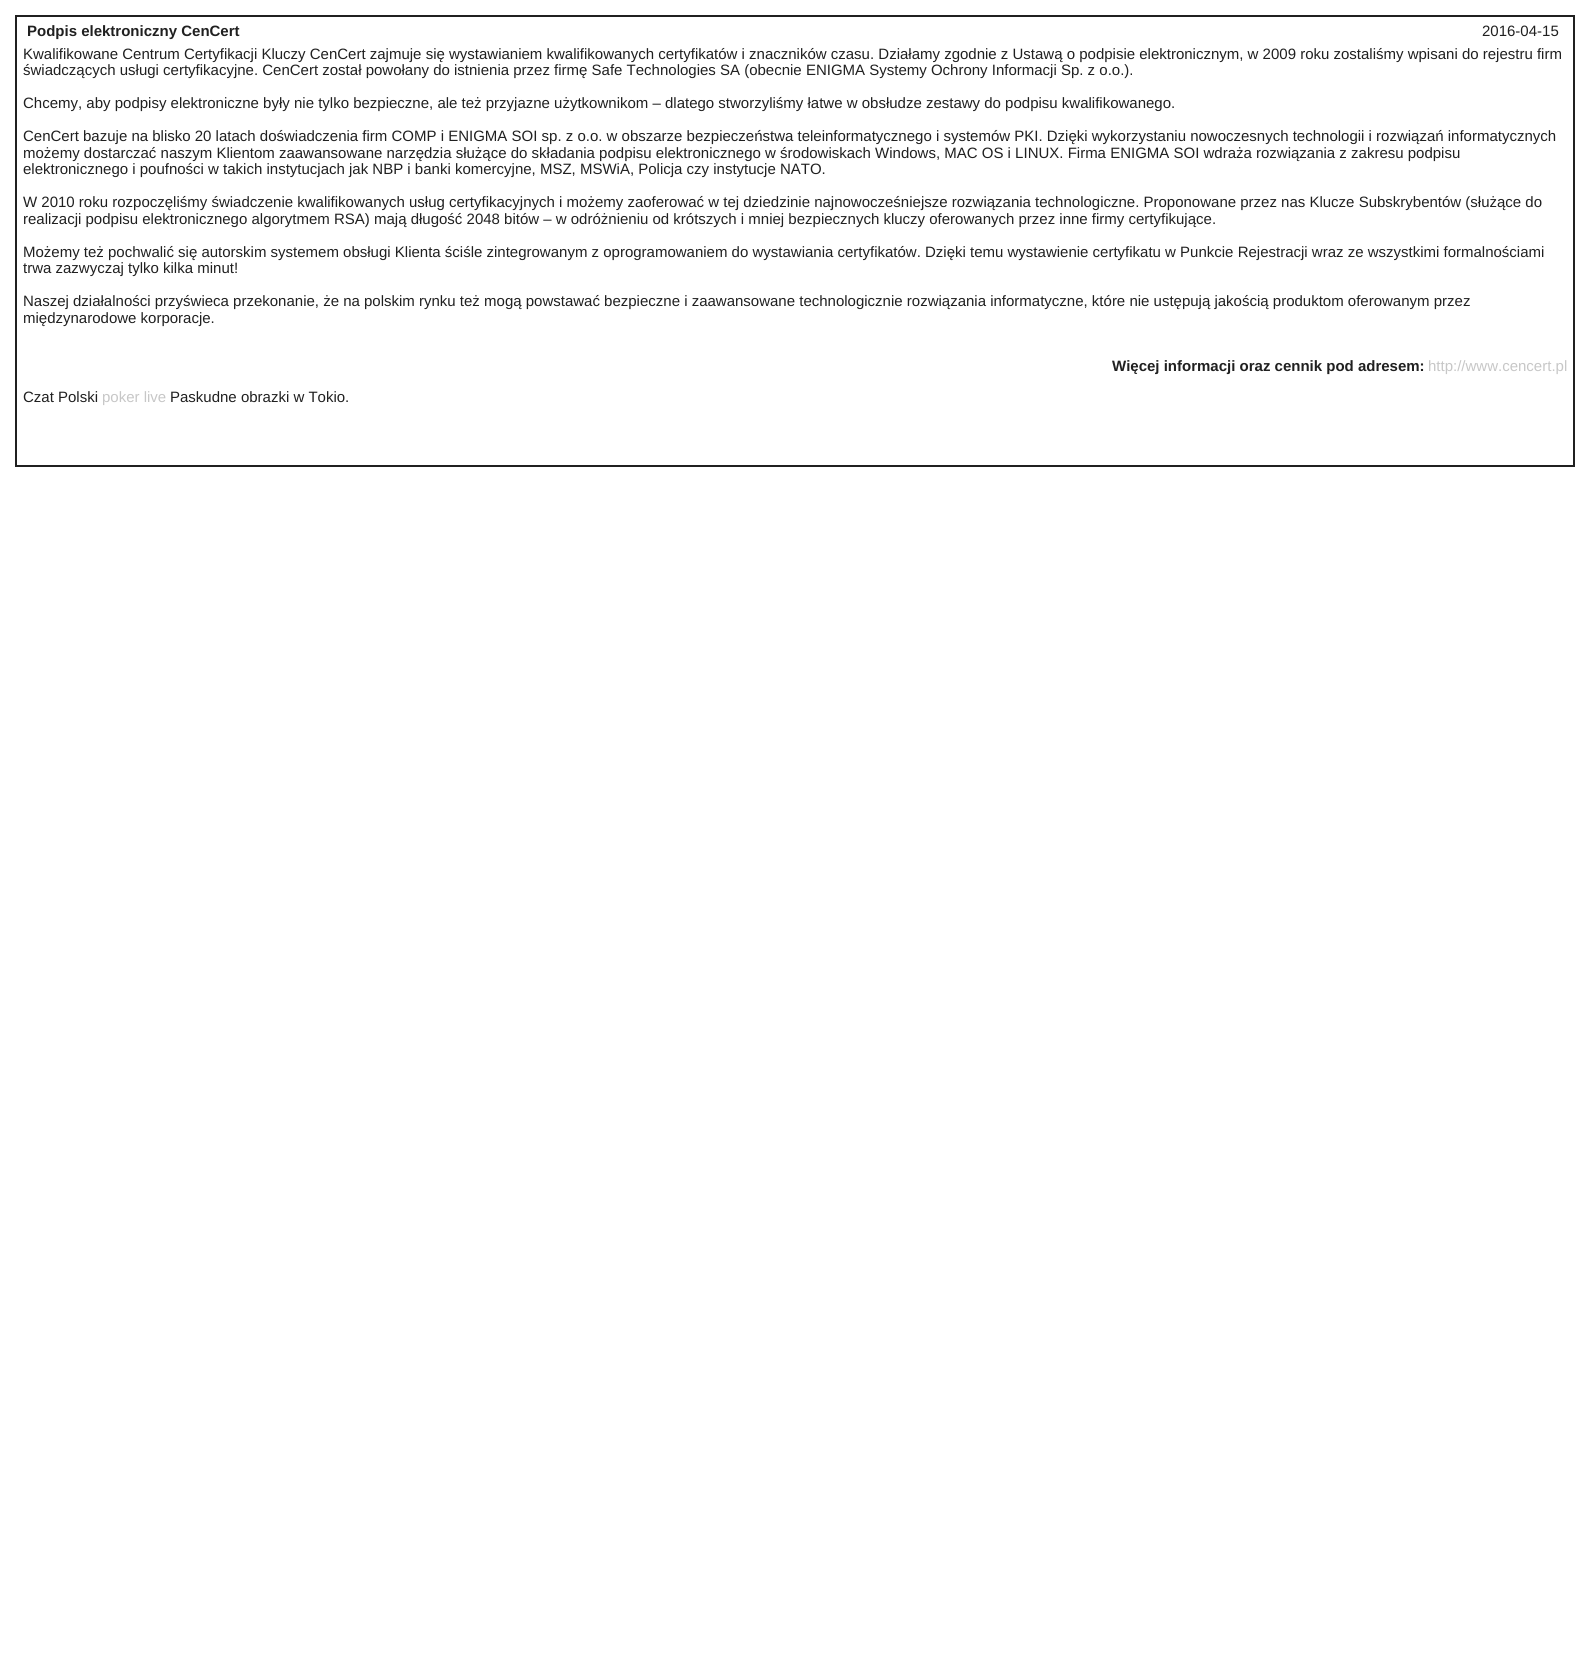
#include <cairo.h>
#include <math.h>
#include <stddef.h>


static void rgb(cairo_t *cr, int r, int g, int b)
{
	cairo_set_source_rgb(cr, r / 255.0, g / 255.0, b / 255.0);
}

static void face(cairo_t *cr, const char *family, double size, int italic, int bold)
{
	cairo_select_font_face(cr, family, italic ? CAIRO_FONT_SLANT_ITALIC : CAIRO_FONT_SLANT_NORMAL,
		bold ? CAIRO_FONT_WEIGHT_BOLD : CAIRO_FONT_WEIGHT_NORMAL);
	cairo_set_font_size(cr, size);
}

static void label(cairo_t *cr, double x, double y, const char *s)
{
	cairo_move_to(cr, x, y);
	cairo_show_text(cr, s);
}

static void draw(cairo_t *cr) {
	rgb(cr, 255, 255, 255);
	cairo_paint(cr);
	cairo_rectangle(cr, 16, 16, 1558, 450);
	rgb(cr, 32, 32, 32);
	cairo_stroke(cr);
	face(cr, "Liberation Sans", 15, 0, 1);
	label(cr, 27, 36, "Podpis elektroniczny CenCert");
	face(cr, "Liberation Sans", 15, 0, 0);
	label(cr, 1482, 36, "2016-04-15");
	label(cr, 23, 59, "Kwalifikowane Centrum Certyfikacji Kluczy CenCert zajmuje się wystawianiem kwalifikowanych certyfikatów i znaczników czasu. Działamy zgodnie z Ustawą o podpisie elektronicznym, w 2009 roku zostaliśmy wpisani do rejestru firm");
	label(cr, 23, 75, "świadczących usługi certyfikacyjne. CenCert został powołany do istnienia przez firmę Safe Technologies SA (obecnie ENIGMA Systemy Ochrony Informacji Sp. z o.o.).");
	label(cr, 23, 108, "Chcemy, aby podpisy elektroniczne były nie tylko bezpieczne, ale też przyjazne użytkownikom – dlatego stworzyliśmy łatwe w obsłudze zestawy do podpisu kwalifikowanego.");
	label(cr, 23, 141, "CenCert bazuje na blisko 20 latach doświadczenia firm COMP i ENIGMA SOI sp. z o.o. w obszarze bezpieczeństwa teleinformatycznego i systemów PKI. Dzięki wykorzystaniu nowoczesnych technologii i rozwiązań informatycznych");
	label(cr, 23, 158, "możemy dostarczać naszym Klientom zaawansowane narzędzia służące do składania podpisu elektronicznego w środowiskach Windows, MAC OS i LINUX. Firma ENIGMA SOI wdraża rozwiązania z zakresu podpisu");
	label(cr, 23, 174, "elektronicznego i poufności w takich instytucjach jak NBP i banki komercyjne, MSZ, MSWiA, Policja czy instytucje NATO.");
	label(cr, 23, 207, "W 2010 roku rozpoczęliśmy świadczenie kwalifikowanych usług certyfikacyjnych i możemy zaoferować w tej dziedzinie najnowocześniejsze rozwiązania technologiczne. Proponowane przez nas Klucze Subskrybentów (służące do");
	label(cr, 23, 224, "realizacji podpisu elektronicznego algorytmem RSA) mają długość 2048 bitów – w odróżnieniu od krótszych i mniej bezpiecznych kluczy oferowanych przez inne firmy certyfikujące.");
	label(cr, 23, 257, "Możemy też pochwalić się autorskim systemem obsługi Klienta ściśle zintegrowanym z oprogramowaniem do wystawiania certyfikatów. Dzięki temu wystawienie certyfikatu w Punkcie Rejestracji wraz ze wszystkimi formalnościami");
	label(cr, 23, 273, "trwa zazwyczaj tylko kilka minut!");
	label(cr, 23, 306, "Naszej działalności przyświeca przekonanie, że na polskim rynku też mogą powstawać bezpieczne i zaawansowane technologicznie rozwiązania informatyczne, które nie ustępują jakością produktom oferowanym przez");
	label(cr, 23, 323, "międzynarodowe korporacje.");
	face(cr, "Liberation Sans", 15, 0, 1);
	label(cr, 1112, 371, "Więcej informacji oraz cennik pod adresem:");
	face(cr, "Liberation Sans", 15, 0, 0);
	rgb(cr, 199, 199, 199);
	label(cr, 1428, 371, "http://www.cencert.pl");
	rgb(cr, 32, 32, 32);
	label(cr, 23, 402, "Czat Polski");
	rgb(cr, 199, 199, 199);
	label(cr, 102, 402, "poker live");
	rgb(cr, 32, 32, 32);
	label(cr, 170, 402, "Paskudne obrazki w Tokio.");
}

int main(void) {
	cairo_surface_t *surface = cairo_image_surface_create(CAIRO_FORMAT_RGB24, 1590, 1679);
	cairo_t *cr = cairo_create(surface);
	cairo_font_options_t *options = cairo_font_options_create();
	cairo_font_options_set_hint_metrics(options, CAIRO_HINT_METRICS_OFF);
	cairo_font_options_set_hint_style(options, CAIRO_HINT_STYLE_NONE);
	cairo_set_font_options(cr, options);
	cairo_set_miter_limit(cr, 4);
	draw(cr);
	cairo_surface_write_to_png(surface, "render.png");
	cairo_font_options_destroy(options);
	cairo_destroy(cr);
	cairo_surface_destroy(surface);
	return 0;
}
